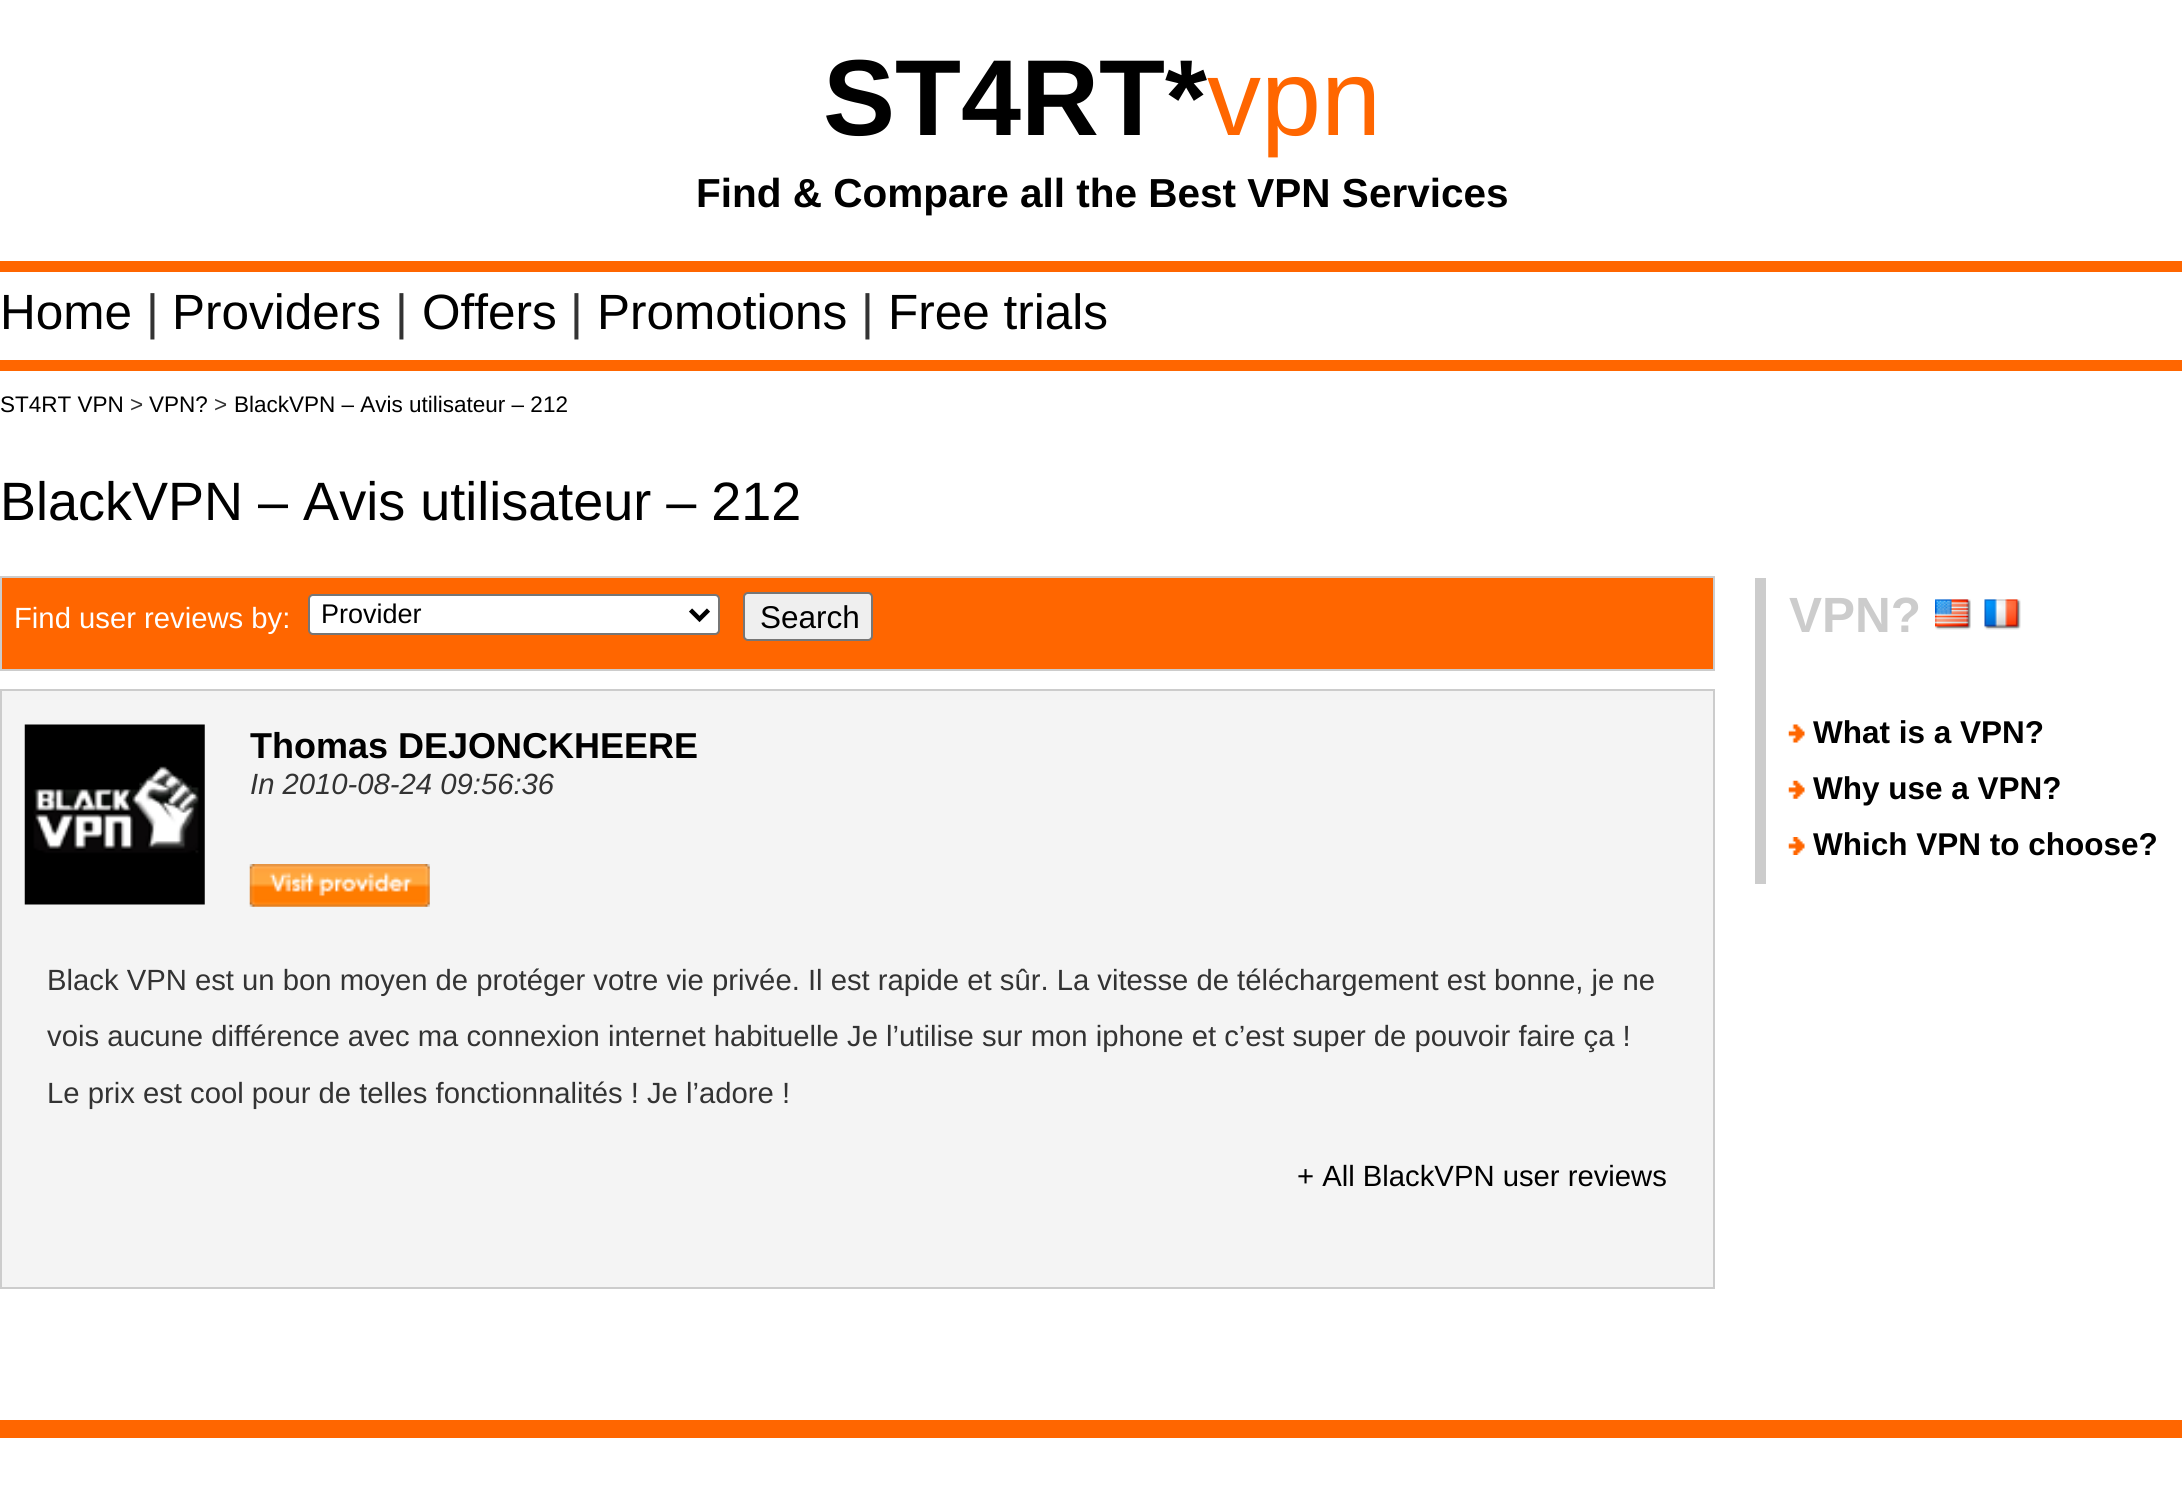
#include <cairo.h>
#include <math.h>
#include <stddef.h>


static void rgb(cairo_t *cr, int r, int g, int b)
{
	cairo_set_source_rgb(cr, r / 255.0, g / 255.0, b / 255.0);
}

static void face(cairo_t *cr, const char *family, double size, int italic, int bold)
{
	cairo_select_font_face(cr, family, italic ? CAIRO_FONT_SLANT_ITALIC : CAIRO_FONT_SLANT_NORMAL,
		bold ? CAIRO_FONT_WEIGHT_BOLD : CAIRO_FONT_WEIGHT_NORMAL);
	cairo_set_font_size(cr, size);
}

static void label(cairo_t *cr, double x, double y, const char *s)
{
	cairo_move_to(cr, x, y);
	cairo_show_text(cr, s);
}

static void rect(cairo_t *cr, double x, double y, double w, double h)
{
	cairo_rectangle(cr, x, y, w, h);
	cairo_fill(cr);
}

static void rrect(cairo_t *cr, double x, double y, double w, double h, double r)
{
	cairo_new_sub_path(cr);
	cairo_arc(cr, x + w - r, y + h - r, r, 0, M_PI / 2);
	cairo_arc(cr, x + r, y + h - r, r, M_PI / 2, M_PI);
	cairo_arc(cr, x + r, y + r, r, M_PI, 1.5 * M_PI);
	cairo_arc(cr, x + w - r, y + r, r, 1.5 * M_PI, 2 * M_PI);
	cairo_close_path(cr);
}

static void image(cairo_t *cr, const char *path, double x, double y, double w, double h)
{
	cairo_surface_t *image = cairo_image_surface_create_from_png(path);
	cairo_save(cr);
	cairo_set_source_surface(cr, image, x, y);
	cairo_rectangle(cr, x, y, w, h);
	cairo_fill(cr);
	cairo_restore(cr);
	cairo_surface_destroy(image);
}

static void draw(cairo_t *cr) {
	rgb(cr, 255, 255, 255);
	cairo_paint(cr);
	face(cr, "Liberation Sans", 108, 0, 1);
	rgb(cr, 0, 0, 0);
	label(cr, 823, 135, "ST4RT*");
	face(cr, "Liberation Sans", 108, 0, 0);
	rgb(cr, 255, 102, 0);
	label(cr, 1207, 135, "vpn");
	face(cr, "Liberation Sans", 40.5, 0, 1);
	rgb(cr, 0, 0, 0);
	label(cr, 696, 207, "Find & Compare all the Best VPN Services");
	rgb(cr, 255, 102, 0);
	rect(cr, 0, 261, 2182, 11);
	face(cr, "Liberation Sans", 49.5, 0, 0);
	rgb(cr, 0, 0, 0);
	label(cr, 0, 329, "Home");
	rgb(cr, 51, 51, 51);
	label(cr, 146, 329, "|");
	rgb(cr, 0, 0, 0);
	label(cr, 172, 329, "Providers");
	rgb(cr, 51, 51, 51);
	label(cr, 395, 329, "|");
	rgb(cr, 0, 0, 0);
	label(cr, 422, 329, "Offers");
	rgb(cr, 51, 51, 51);
	label(cr, 570, 329, "|");
	rgb(cr, 0, 0, 0);
	label(cr, 597, 329, "Promotions");
	rgb(cr, 51, 51, 51);
	label(cr, 861, 329, "|");
	rgb(cr, 0, 0, 0);
	label(cr, 888, 329, "Free trials");
	rgb(cr, 255, 102, 0);
	rect(cr, 0, 360, 2182, 11);
	face(cr, "Liberation Sans", 22.5, 0, 0);
	rgb(cr, 0, 0, 0);
	label(cr, 0, 412, "ST4RT VPN");
	rgb(cr, 51, 51, 51);
	label(cr, 130, 412, ">");
	rgb(cr, 0, 0, 0);
	label(cr, 149, 412, "VPN?");
	rgb(cr, 51, 51, 51);
	label(cr, 214, 412, ">");
	rgb(cr, 0, 0, 0);
	label(cr, 234, 412, "BlackVPN – Avis utilisateur – 212");
	face(cr, "Liberation Sans", 54, 0, 0);
	label(cr, 0, 520, "BlackVPN – Avis utilisateur – 212");
	rgb(cr, 255, 102, 0);
	cairo_rectangle(cr, 1, 577, 1713, 93);
	cairo_fill_preserve(cr);
	rgb(cr, 204, 204, 204);
	cairo_stroke(cr);
	face(cr, "Liberation Sans", 29.25, 0, 0);
	rgb(cr, 255, 255, 255);
	label(cr, 14, 628, "Find user reviews by:");
	rrect(cr, 309, 595, 410, 39, 4);
	cairo_fill_preserve(cr);
	rgb(cr, 118, 118, 118);
	cairo_stroke(cr);
	cairo_new_path(cr);
	cairo_move_to(cr, 690.5, 610);
	cairo_line_to(cr, 699.5, 619);
	cairo_line_to(cr, 708.5, 610);
	rgb(cr, 0, 0, 0);
	cairo_set_line_width(cr, 4.5);
	cairo_stroke(cr);
	face(cr, "Liberation Sans", 27, 0, 0);
	label(cr, 321, 623, "Provider");
	rgb(cr, 239, 239, 239);
	rrect(cr, 744, 593, 128, 47, 4);
	cairo_fill_preserve(cr);
	rgb(cr, 118, 118, 118);
	cairo_set_line_width(cr, 2);
	cairo_stroke(cr);
	face(cr, "Liberation Sans", 31.5, 0, 0);
	rgb(cr, 0, 0, 0);
	label(cr, 760, 628, "Search");
	rgb(cr, 244, 244, 244);
	cairo_rectangle(cr, 1, 690, 1713, 598);
	cairo_fill_preserve(cr);
	rgb(cr, 204, 204, 204);
	cairo_stroke(cr);
	image(cr, "image0.png", 24, 724, 181, 181);
	face(cr, "Liberation Sans", 36, 0, 1);
	rgb(cr, 0, 0, 0);
	label(cr, 250, 758, "Thomas DEJONCKHEERE");
	face(cr, "Liberation Sans", 29.25, 1, 0);
	rgb(cr, 51, 51, 51);
	label(cr, 250, 794, "In 2010-08-24 09:56:36");
	image(cr, "image1.png", 249, 864, 181, 43);
	face(cr, "Liberation Sans", 29.25, 0, 0);
	label(cr, 47, 990, "Black VPN est un bon moyen de protéger votre vie privée. Il est rapide et sûr. La vitesse de téléchargement est bonne, je ne");
	label(cr, 47, 1046, "vois aucune différence avec ma connexion internet habituelle Je l’utilise sur mon iphone et c’est super de pouvoir faire ça !");
	label(cr, 47, 1103, "Le prix est cool pour de telles fonctionnalités ! Je l’adore !");
	rgb(cr, 0, 0, 0);
	label(cr, 1297, 1186, "+ All BlackVPN user reviews");
	rgb(cr, 204, 204, 204);
	rect(cr, 1755, 578, 11, 306);
	face(cr, "Liberation Sans", 49.5, 0, 1);
	label(cr, 1789, 632, "VPN?");
	image(cr, "image2.png", 1935, 599, 36, 31);
	image(cr, "image3.png", 1984, 599, 37, 31);
	image(cr, "image4.png", 1788, 724, 17, 19);
	face(cr, "Liberation Sans", 31.5, 0, 1);
	rgb(cr, 0, 0, 0);
	label(cr, 1813, 743, "What is a VPN?");
	image(cr, "image5.png", 1788, 780, 17, 19);
	label(cr, 1813, 799, "Why use a VPN?");
	image(cr, "image6.png", 1788, 837, 17, 18);
	label(cr, 1813, 855, "Which VPN to choose?");
	rgb(cr, 255, 102, 0);
	rect(cr, 0, 1420, 2182, 18);
}

int main(void) {
	cairo_surface_t *surface = cairo_image_surface_create(CAIRO_FORMAT_RGB24, 2182, 1509);
	cairo_t *cr = cairo_create(surface);
	cairo_font_options_t *options = cairo_font_options_create();
	cairo_font_options_set_hint_metrics(options, CAIRO_HINT_METRICS_OFF);
	cairo_font_options_set_hint_style(options, CAIRO_HINT_STYLE_NONE);
	cairo_set_font_options(cr, options);
	cairo_set_miter_limit(cr, 4);
	draw(cr);
	cairo_surface_write_to_png(surface, "render.png");
	cairo_font_options_destroy(options);
	cairo_destroy(cr);
	cairo_surface_destroy(surface);
	return 0;
}
